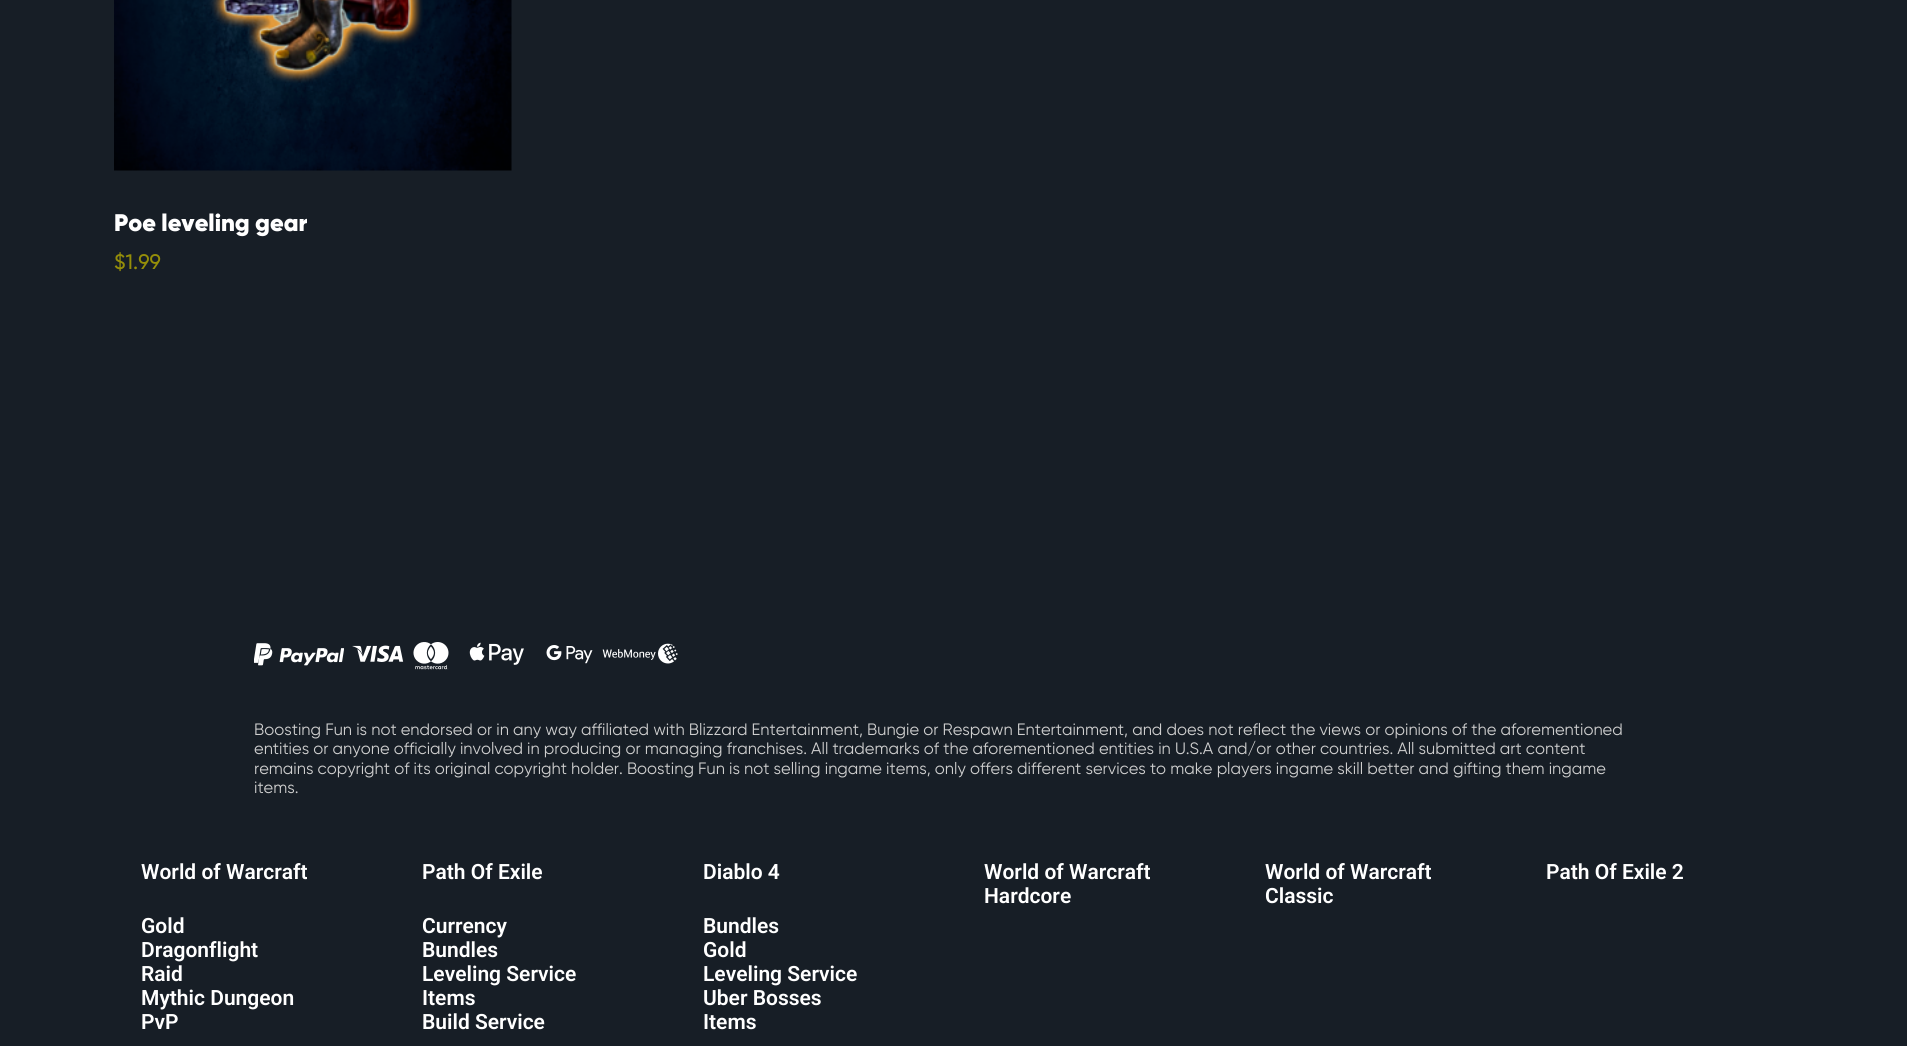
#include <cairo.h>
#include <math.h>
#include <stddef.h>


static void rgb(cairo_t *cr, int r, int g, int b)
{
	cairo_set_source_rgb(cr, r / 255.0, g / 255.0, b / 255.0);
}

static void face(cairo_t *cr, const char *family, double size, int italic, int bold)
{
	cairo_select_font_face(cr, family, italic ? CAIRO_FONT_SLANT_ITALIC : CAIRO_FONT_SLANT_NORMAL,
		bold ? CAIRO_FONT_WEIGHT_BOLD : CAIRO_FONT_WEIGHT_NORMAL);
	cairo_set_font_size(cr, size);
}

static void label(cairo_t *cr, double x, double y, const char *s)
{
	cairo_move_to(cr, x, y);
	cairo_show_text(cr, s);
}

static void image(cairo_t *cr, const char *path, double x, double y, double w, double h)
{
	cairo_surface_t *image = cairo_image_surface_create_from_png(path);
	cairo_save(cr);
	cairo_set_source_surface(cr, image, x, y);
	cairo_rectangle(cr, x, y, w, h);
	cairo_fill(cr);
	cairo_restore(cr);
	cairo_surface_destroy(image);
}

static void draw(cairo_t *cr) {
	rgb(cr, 23, 30, 38);
	cairo_paint(cr);
	image(cr, "image0.png", 114, 0, 398, 171);
	face(cr, "Gilroy Black", 24, 0, 0);
	rgb(cr, 255, 255, 255);
	label(cr, 114, 231, "Poe leveling gear");
	face(cr, "Gilroy Medium", 21, 0, 0);
	rgb(cr, 149, 142, 9);
	label(cr, 114, 269, "$1.99");
	image(cr, "image1.png", 254, 643, 90, 23);
	image(cr, "image2.png", 352, 642, 97, 28);
	image(cr, "image3.png", 469, 642, 55, 23);
	image(cr, "image4.png", 546, 645, 47, 19);
	image(cr, "image5.png", 602, 643, 76, 21);
	face(cr, "Gilroy", 16.5, 0, 0);
	rgb(cr, 206, 206, 206);
	label(cr, 254, 735, "Boosting Fun is not endorsed or in any way affiliated with Blizzard Entertainment, Bungie or Respawn Entertainment, and does not reflect the views or opinions of the aforementioned");
	label(cr, 254, 754, "entities or anyone officially involved in producing or managing franchises. All trademarks of the aforementioned entities in U.S.A and/or other countries. All submitted art content");
	label(cr, 254, 774, "remains copyright of its original copyright holder. Boosting Fun is not selling ingame items, only offers different services to make players ingame skill better and gifting them ingame");
	label(cr, 254, 793, "items.");
	face(cr, "Roboto SemiBold", 21, 0, 0);
	rgb(cr, 255, 255, 255);
	label(cr, 141, 879, "World of Warcraft");
	label(cr, 141, 933, "Gold");
	label(cr, 141, 957, "Dragonflight");
	label(cr, 141, 981, "Raid");
	label(cr, 141, 1005, "Mythic Dungeon");
	label(cr, 141, 1029, "PvP");
	label(cr, 422, 879, "Path Of Exile");
	label(cr, 422, 933, "Currency");
	label(cr, 422, 957, "Bundles");
	label(cr, 422, 981, "Leveling Service");
	label(cr, 422, 1005, "Items");
	label(cr, 422, 1029, "Build Service");
	label(cr, 703, 879, "Diablo 4");
	label(cr, 703, 933, "Bundles");
	label(cr, 703, 957, "Gold");
	label(cr, 703, 981, "Leveling Service");
	label(cr, 703, 1005, "Uber Bosses");
	label(cr, 703, 1029, "Items");
	label(cr, 984, 879, "World of Warcraft");
	label(cr, 984, 903, "Hardcore");
	label(cr, 1265, 879, "World of Warcraft");
	label(cr, 1265, 903, "Classic");
	label(cr, 1546, 879, "Path Of Exile 2");
}

int main(void) {
	cairo_surface_t *surface = cairo_image_surface_create(CAIRO_FORMAT_RGB24, 1907, 1046);
	cairo_t *cr = cairo_create(surface);
	cairo_font_options_t *options = cairo_font_options_create();
	cairo_font_options_set_hint_metrics(options, CAIRO_HINT_METRICS_OFF);
	cairo_font_options_set_hint_style(options, CAIRO_HINT_STYLE_NONE);
	cairo_set_font_options(cr, options);
	cairo_set_miter_limit(cr, 4);
	draw(cr);
	cairo_surface_write_to_png(surface, "render.png");
	cairo_font_options_destroy(options);
	cairo_destroy(cr);
	cairo_surface_destroy(surface);
	return 0;
}
